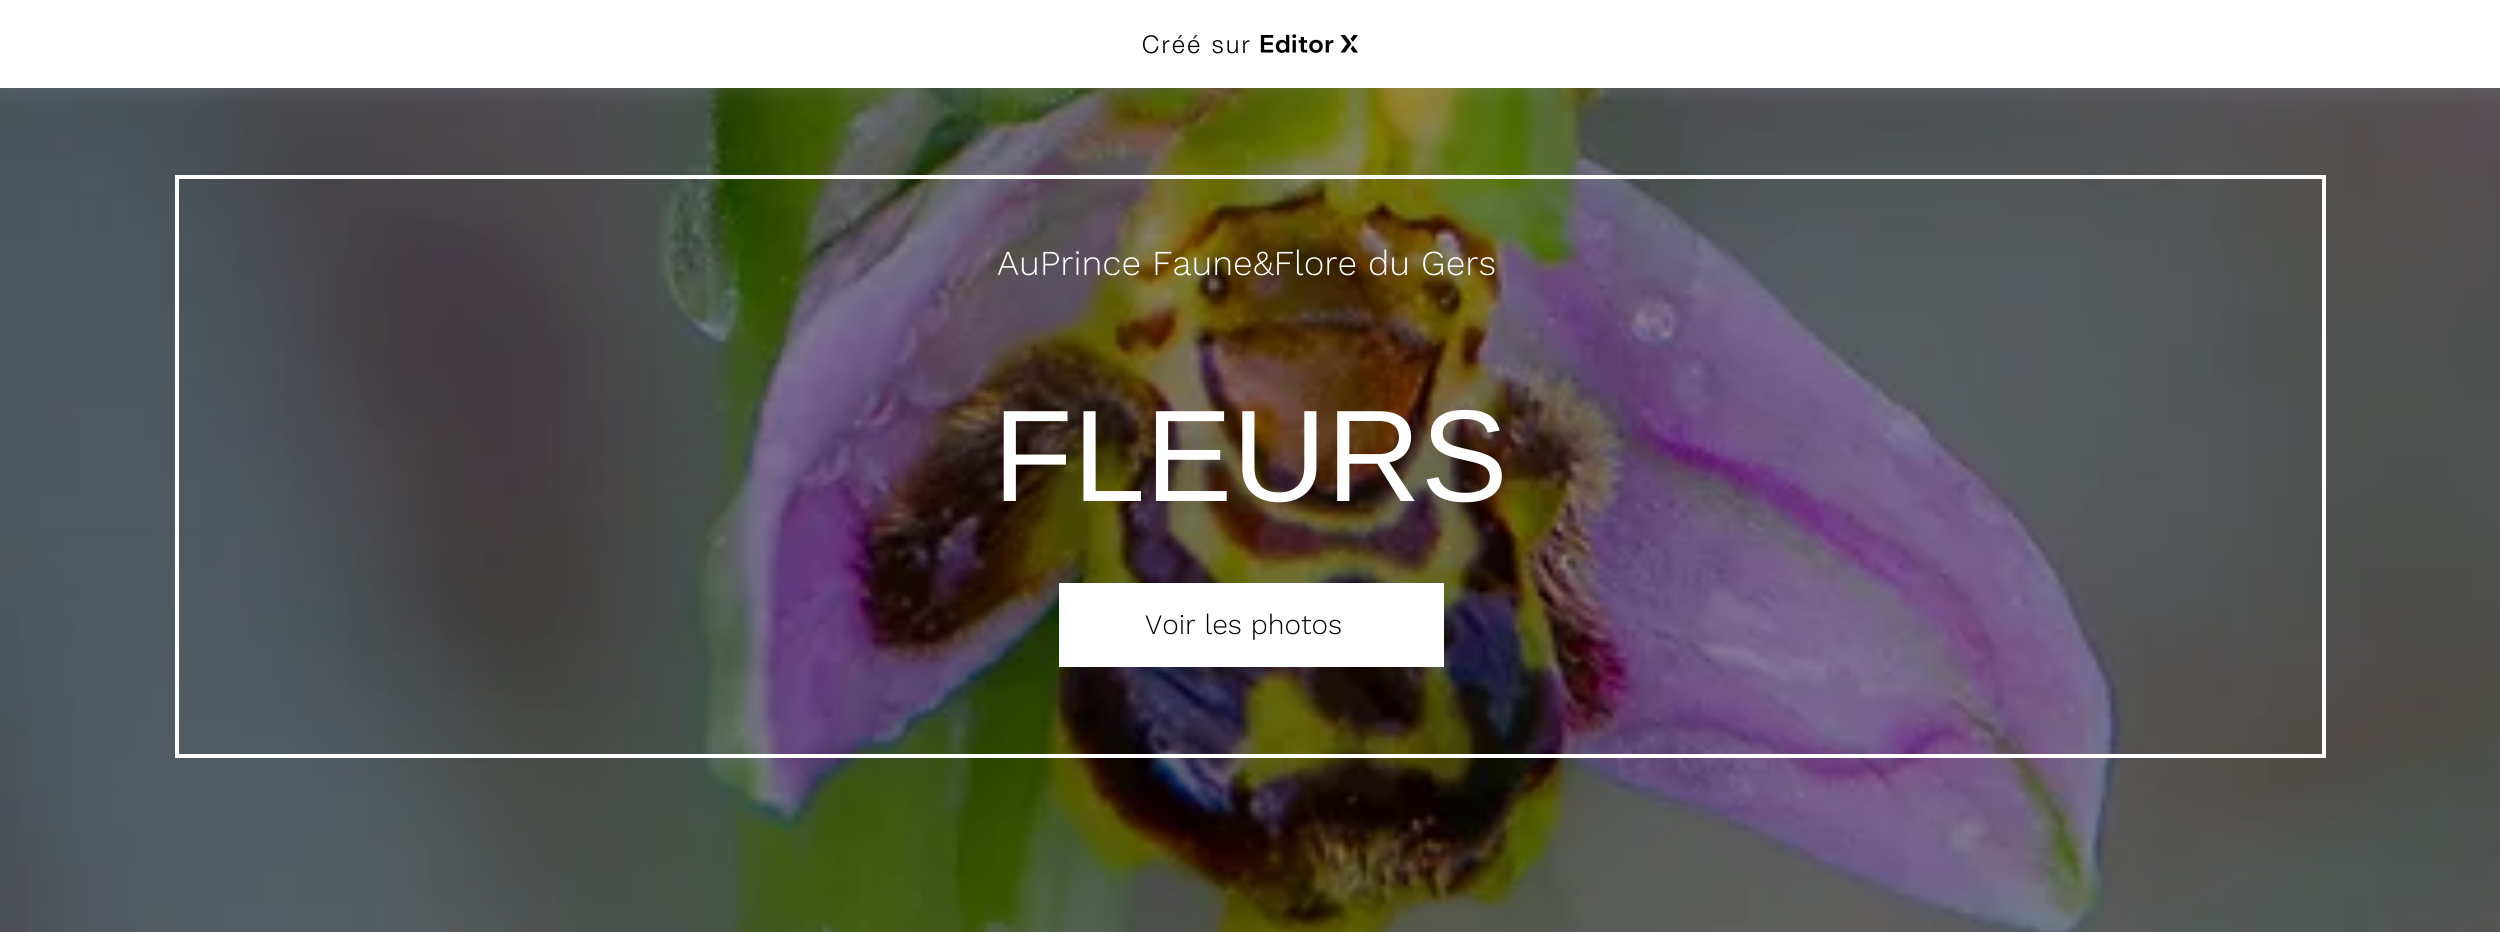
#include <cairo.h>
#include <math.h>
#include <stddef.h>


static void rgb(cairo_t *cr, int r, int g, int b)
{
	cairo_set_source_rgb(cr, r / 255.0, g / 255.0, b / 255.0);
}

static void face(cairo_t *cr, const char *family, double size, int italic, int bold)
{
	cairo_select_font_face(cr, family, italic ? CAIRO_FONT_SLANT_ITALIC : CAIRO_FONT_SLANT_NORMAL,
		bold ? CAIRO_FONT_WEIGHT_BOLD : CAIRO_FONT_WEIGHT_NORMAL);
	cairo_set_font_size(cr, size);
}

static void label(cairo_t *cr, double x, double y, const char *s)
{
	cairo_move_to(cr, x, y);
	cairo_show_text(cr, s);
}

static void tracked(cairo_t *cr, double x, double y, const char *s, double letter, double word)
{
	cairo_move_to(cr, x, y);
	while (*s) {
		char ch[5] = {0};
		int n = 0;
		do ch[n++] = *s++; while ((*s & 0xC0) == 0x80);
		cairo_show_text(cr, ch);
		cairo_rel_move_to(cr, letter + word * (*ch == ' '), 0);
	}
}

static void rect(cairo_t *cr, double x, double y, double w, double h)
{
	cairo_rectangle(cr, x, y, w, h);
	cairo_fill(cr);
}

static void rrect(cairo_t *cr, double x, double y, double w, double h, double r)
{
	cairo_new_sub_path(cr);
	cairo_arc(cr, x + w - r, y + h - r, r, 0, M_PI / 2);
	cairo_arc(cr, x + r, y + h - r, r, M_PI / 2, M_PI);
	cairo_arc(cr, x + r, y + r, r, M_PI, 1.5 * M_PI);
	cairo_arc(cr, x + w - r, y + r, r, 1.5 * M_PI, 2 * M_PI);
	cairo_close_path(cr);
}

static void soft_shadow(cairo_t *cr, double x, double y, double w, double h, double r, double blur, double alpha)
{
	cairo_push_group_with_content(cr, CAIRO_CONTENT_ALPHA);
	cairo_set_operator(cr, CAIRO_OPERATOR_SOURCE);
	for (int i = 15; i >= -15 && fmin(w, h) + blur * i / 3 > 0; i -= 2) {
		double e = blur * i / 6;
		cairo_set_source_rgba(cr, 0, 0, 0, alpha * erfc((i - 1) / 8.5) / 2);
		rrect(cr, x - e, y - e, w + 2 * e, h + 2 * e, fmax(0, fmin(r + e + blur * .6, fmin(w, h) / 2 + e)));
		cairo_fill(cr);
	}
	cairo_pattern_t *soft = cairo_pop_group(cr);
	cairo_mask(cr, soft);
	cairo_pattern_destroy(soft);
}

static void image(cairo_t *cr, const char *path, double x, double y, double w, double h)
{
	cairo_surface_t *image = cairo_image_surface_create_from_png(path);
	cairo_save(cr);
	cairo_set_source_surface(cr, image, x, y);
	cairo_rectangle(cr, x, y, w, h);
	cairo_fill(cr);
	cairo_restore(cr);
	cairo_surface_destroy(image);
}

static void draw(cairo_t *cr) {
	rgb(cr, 0, 0, 0);
	cairo_paint(cr);
	image(cr, "image1.png", 0, 88, 2500, 844);
	rgb(cr, 164, 168, 192);
	soft_shadow(cr, 0, 4, 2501, 87, 0, 10.5, 0.2);
	rgb(cr, 255, 255, 255);
	rect(cr, 0, 0, 2500, 88);
	face(cr, "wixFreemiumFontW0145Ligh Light", 24.5, 0, 0);
	rgb(cr, 0, 0, 0);
	tracked(cr, 1142, 53, "Créé sur", 2.5, 0);
	image(cr, "image0.png", 1260, 34, 98, 19);
	cairo_rectangle(cr, 177, 177, 2147, 579);
	rgb(cr, 255, 255, 255);
	cairo_set_line_width(cr, 4);
	cairo_stroke(cr);
	face(cr, "Work Sans Light", 35, 0, 0);
	label(cr, 997, 275, "AuPrince Faune&Flore du Gers");
	face(cr, "Liberation Sans", 130.5, 0, 0);
	label(cr, 993, 501, "FLEURS");
	rect(cr, 1059, 583, 385, 84);
	face(cr, "Work Sans Light", 28, 0, 0);
	rgb(cr, 0, 0, 0);
	label(cr, 1145, 634, "Voir les photos");
}

int main(void) {
	cairo_surface_t *surface = cairo_image_surface_create(CAIRO_FORMAT_RGB24, 2500, 932);
	cairo_t *cr = cairo_create(surface);
	cairo_font_options_t *options = cairo_font_options_create();
	cairo_font_options_set_hint_metrics(options, CAIRO_HINT_METRICS_OFF);
	cairo_font_options_set_hint_style(options, CAIRO_HINT_STYLE_NONE);
	cairo_set_font_options(cr, options);
	cairo_set_miter_limit(cr, 4);
	draw(cr);
	cairo_surface_write_to_png(surface, "render.png");
	cairo_font_options_destroy(options);
	cairo_destroy(cr);
	cairo_surface_destroy(surface);
	return 0;
}
